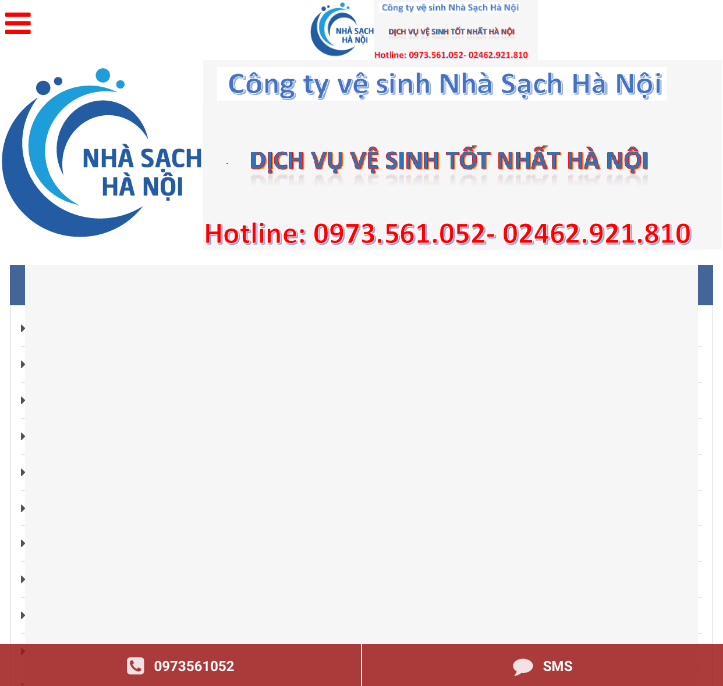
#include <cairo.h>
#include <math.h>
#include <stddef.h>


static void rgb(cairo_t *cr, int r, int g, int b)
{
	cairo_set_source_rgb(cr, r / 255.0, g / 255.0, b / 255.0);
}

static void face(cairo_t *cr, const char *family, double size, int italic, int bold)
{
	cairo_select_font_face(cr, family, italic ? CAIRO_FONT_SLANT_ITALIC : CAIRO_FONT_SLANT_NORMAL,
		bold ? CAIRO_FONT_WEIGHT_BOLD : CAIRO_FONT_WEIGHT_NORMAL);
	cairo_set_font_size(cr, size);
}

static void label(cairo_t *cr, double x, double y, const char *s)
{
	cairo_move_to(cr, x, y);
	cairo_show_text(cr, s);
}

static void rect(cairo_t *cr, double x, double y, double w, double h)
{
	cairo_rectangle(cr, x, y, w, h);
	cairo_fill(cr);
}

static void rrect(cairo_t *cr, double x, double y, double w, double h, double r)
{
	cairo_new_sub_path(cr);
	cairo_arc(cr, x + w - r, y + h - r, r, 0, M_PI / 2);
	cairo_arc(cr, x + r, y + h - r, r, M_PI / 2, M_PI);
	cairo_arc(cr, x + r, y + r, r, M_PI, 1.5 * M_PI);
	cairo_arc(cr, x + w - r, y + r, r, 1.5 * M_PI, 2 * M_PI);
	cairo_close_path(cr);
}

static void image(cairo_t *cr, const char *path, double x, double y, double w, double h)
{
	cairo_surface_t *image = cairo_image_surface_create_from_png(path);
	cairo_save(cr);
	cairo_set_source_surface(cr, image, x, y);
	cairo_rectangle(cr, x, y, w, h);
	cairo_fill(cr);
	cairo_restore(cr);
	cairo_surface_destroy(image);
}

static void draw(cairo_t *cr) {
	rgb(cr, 255, 255, 255);
	cairo_paint(cr);
	image(cr, "image0.png", 5, 12, 26, 22);
	image(cr, "image1.png", 310, 0, 228, 60);
	image(cr, "image2.png", 1, 60, 721, 190);
	rgb(cr, 68, 101, 154);
	rect(cr, 10, 265, 703, 40);
	cairo_rectangle(cr, 10.5, 305.5, 702, 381);
	rgb(cr, 235, 235, 235);
	cairo_set_line_width(cr, 1);
	cairo_stroke(cr);
	image(cr, "image3.png", 21, 324, 4, 8);
	rgb(cr, 232, 232, 232);
	rect(cr, 21, 346, 681, 1);
	image(cr, "image3.png", 21, 360, 4, 8);
	rect(cr, 21, 382, 681, 1);
	image(cr, "image3.png", 21, 396, 4, 8);
	rect(cr, 21, 418, 681, 1);
	image(cr, "image3.png", 21, 432, 4, 8);
	rect(cr, 21, 454, 681, 1);
	image(cr, "image3.png", 21, 468, 4, 8);
	rect(cr, 21, 490, 681, 1);
	image(cr, "image3.png", 21, 504, 4, 8);
	rect(cr, 21, 525, 681, 1);
	image(cr, "image3.png", 21, 539, 4, 8);
	rect(cr, 21, 561, 681, 1);
	image(cr, "image3.png", 21, 575, 4, 8);
	rect(cr, 21, 597, 681, 1);
	image(cr, "image3.png", 21, 611, 4, 8);
	rect(cr, 21, 633, 681, 1);
	image(cr, "image3.png", 21, 647, 4, 8);
	rect(cr, 21, 669, 681, 1);
	rgb(cr, 167, 167, 167);
	rect(cr, 21, 683, 3, 3);
	rgb(cr, 255, 255, 255);
	rect(cr, 25, 265, 673, 4);
	rgb(cr, 246, 246, 246);
	rrect(cr, 25, 265, 673, 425, 4);
	cairo_fill(cr);
	cairo_set_source_rgba(cr, 0.62, 0.102, 0.102, 0.85);
	rect(cr, 0, 644, 723, 42);
	rgb(cr, 254, 254, 254);
	rect(cr, 361, 644, 1, 42);
	image(cr, "image4.png", 127, 657, 18, 18);
	face(cr, "Roboto", 14, 0, 1);
	label(cr, 154, 671, "0973561052");
	image(cr, "image5.png", 513, 658, 20, 18);
	label(cr, 543, 671, "SMS");
}

int main(void) {
	cairo_surface_t *surface = cairo_image_surface_create(CAIRO_FORMAT_RGB24, 723, 686);
	cairo_t *cr = cairo_create(surface);
	cairo_font_options_t *options = cairo_font_options_create();
	cairo_font_options_set_hint_metrics(options, CAIRO_HINT_METRICS_OFF);
	cairo_font_options_set_hint_style(options, CAIRO_HINT_STYLE_NONE);
	cairo_set_font_options(cr, options);
	cairo_set_miter_limit(cr, 4);
	draw(cr);
	cairo_surface_write_to_png(surface, "render.png");
	cairo_font_options_destroy(options);
	cairo_destroy(cr);
	cairo_surface_destroy(surface);
	return 0;
}
